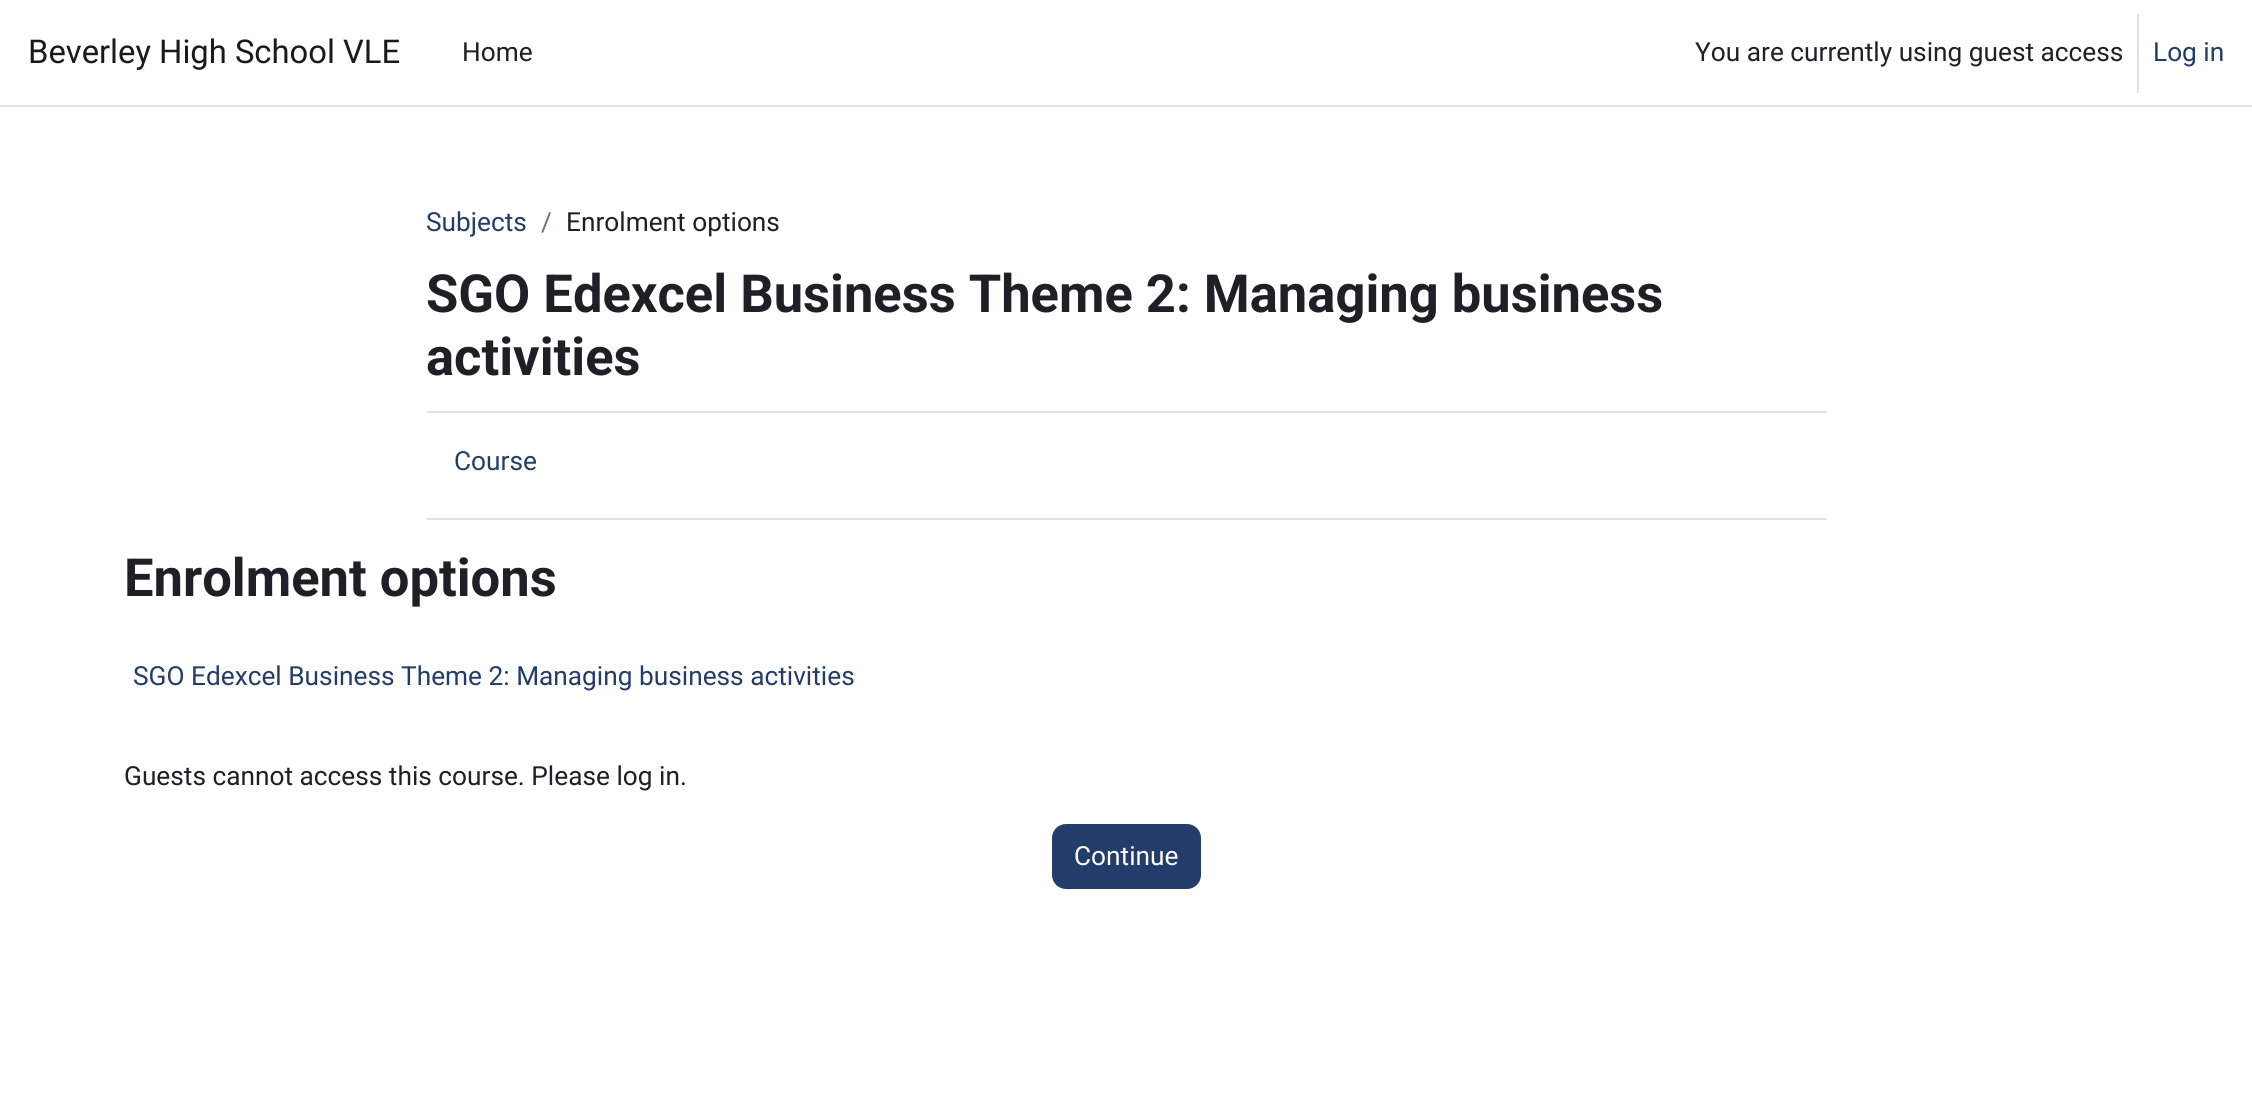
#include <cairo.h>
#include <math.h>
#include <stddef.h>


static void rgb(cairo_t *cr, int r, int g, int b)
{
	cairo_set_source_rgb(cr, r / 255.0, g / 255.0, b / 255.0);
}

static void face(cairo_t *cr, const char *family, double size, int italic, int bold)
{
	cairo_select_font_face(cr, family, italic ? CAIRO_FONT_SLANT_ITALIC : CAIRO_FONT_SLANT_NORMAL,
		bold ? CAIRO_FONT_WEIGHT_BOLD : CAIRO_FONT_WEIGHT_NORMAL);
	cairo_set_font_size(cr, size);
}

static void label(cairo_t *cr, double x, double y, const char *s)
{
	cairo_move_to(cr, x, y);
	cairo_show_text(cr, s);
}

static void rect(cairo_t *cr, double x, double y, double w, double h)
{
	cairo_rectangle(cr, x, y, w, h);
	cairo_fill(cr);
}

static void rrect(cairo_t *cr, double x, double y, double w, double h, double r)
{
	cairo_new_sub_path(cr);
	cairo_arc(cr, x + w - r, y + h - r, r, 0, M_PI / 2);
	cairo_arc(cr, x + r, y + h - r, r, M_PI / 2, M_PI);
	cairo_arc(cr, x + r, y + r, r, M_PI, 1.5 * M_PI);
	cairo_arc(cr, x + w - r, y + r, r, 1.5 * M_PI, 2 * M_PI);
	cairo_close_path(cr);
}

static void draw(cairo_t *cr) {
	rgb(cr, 255, 255, 255);
	cairo_paint(cr);
	rgb(cr, 222, 226, 230);
	rect(cr, 0, 105, 2252, 2);
	face(cr, "Roboto", 32.75, 0, 0);
	rgb(cr, 26, 26, 26);
	label(cr, 28, 63, "Beverley High School VLE");
	face(cr, "Roboto", 26.25, 0, 0);
	rgb(cr, 29, 33, 37);
	label(cr, 462, 61, "Home");
	label(cr, 1695, 61, "You are currently using guest access");
	rgb(cr, 222, 226, 230);
	rect(cr, 2137, 14, 2, 79);
	rgb(cr, 35, 60, 105);
	label(cr, 2153, 61, "Log in");
	label(cr, 426, 231, "Subjects");
	rgb(cr, 106, 115, 123);
	label(cr, 541, 231, "/");
	rgb(cr, 29, 33, 37);
	label(cr, 566, 231, "Enrolment options");
	face(cr, "Roboto", 52.5, 0, 1);
	label(cr, 426, 312, "SGO Edexcel Business Theme 2: Managing business");
	label(cr, 426, 375, "activities");
	rgb(cr, 222, 226, 230);
	rect(cr, 427, 411, 1400, 2);
	rect(cr, 427, 518, 1400, 2);
	face(cr, "Roboto", 26.25, 0, 0);
	rgb(cr, 35, 60, 105);
	label(cr, 454, 470, "Course");
	face(cr, "Roboto", 52.5, 0, 1);
	rgb(cr, 29, 33, 37);
	label(cr, 124, 596, "Enrolment options");
	face(cr, "Roboto", 26.25, 0, 0);
	rgb(cr, 35, 60, 105);
	label(cr, 133, 685, "SGO Edexcel Business Theme 2: Managing business activities");
	rgb(cr, 29, 33, 37);
	label(cr, 124, 785, "Guests cannot access this course. Please log in.");
	rgb(cr, 35, 60, 105);
	rrect(cr, 1053, 825, 147, 63, 13);
	cairo_fill_preserve(cr);
	cairo_stroke(cr);
	rgb(cr, 255, 255, 255);
	label(cr, 1074, 865, "Continue");
}

int main(void) {
	cairo_surface_t *surface = cairo_image_surface_create(CAIRO_FORMAT_RGB24, 2252, 1094);
	cairo_t *cr = cairo_create(surface);
	cairo_font_options_t *options = cairo_font_options_create();
	cairo_font_options_set_hint_metrics(options, CAIRO_HINT_METRICS_OFF);
	cairo_font_options_set_hint_style(options, CAIRO_HINT_STYLE_NONE);
	cairo_set_font_options(cr, options);
	cairo_set_miter_limit(cr, 4);
	draw(cr);
	cairo_surface_write_to_png(surface, "render.png");
	cairo_font_options_destroy(options);
	cairo_destroy(cr);
	cairo_surface_destroy(surface);
	return 0;
}
